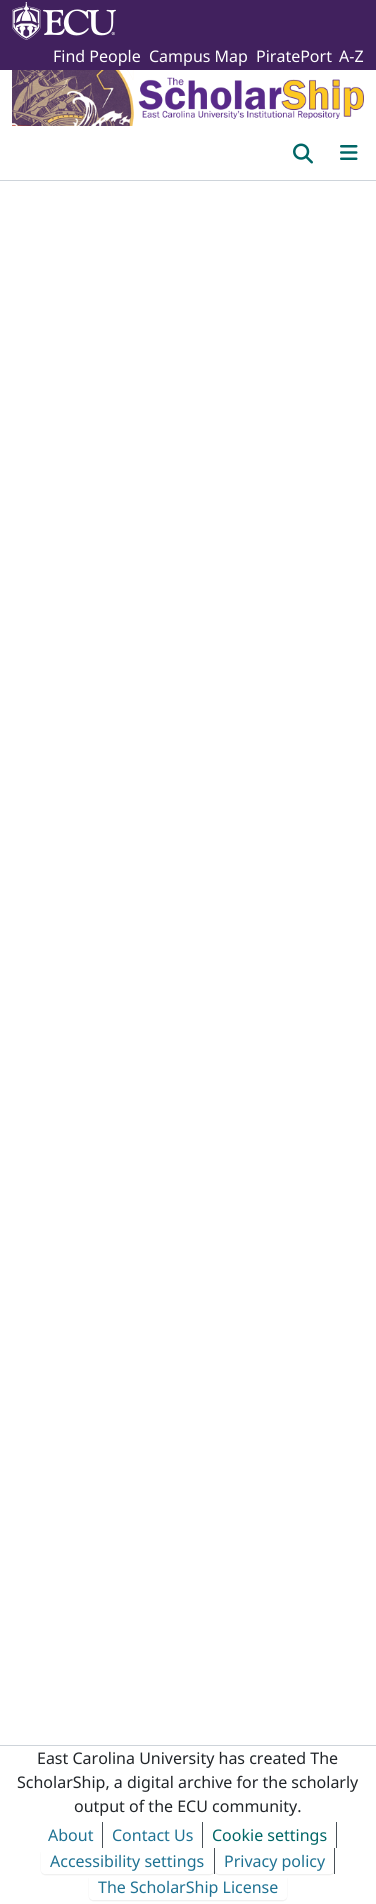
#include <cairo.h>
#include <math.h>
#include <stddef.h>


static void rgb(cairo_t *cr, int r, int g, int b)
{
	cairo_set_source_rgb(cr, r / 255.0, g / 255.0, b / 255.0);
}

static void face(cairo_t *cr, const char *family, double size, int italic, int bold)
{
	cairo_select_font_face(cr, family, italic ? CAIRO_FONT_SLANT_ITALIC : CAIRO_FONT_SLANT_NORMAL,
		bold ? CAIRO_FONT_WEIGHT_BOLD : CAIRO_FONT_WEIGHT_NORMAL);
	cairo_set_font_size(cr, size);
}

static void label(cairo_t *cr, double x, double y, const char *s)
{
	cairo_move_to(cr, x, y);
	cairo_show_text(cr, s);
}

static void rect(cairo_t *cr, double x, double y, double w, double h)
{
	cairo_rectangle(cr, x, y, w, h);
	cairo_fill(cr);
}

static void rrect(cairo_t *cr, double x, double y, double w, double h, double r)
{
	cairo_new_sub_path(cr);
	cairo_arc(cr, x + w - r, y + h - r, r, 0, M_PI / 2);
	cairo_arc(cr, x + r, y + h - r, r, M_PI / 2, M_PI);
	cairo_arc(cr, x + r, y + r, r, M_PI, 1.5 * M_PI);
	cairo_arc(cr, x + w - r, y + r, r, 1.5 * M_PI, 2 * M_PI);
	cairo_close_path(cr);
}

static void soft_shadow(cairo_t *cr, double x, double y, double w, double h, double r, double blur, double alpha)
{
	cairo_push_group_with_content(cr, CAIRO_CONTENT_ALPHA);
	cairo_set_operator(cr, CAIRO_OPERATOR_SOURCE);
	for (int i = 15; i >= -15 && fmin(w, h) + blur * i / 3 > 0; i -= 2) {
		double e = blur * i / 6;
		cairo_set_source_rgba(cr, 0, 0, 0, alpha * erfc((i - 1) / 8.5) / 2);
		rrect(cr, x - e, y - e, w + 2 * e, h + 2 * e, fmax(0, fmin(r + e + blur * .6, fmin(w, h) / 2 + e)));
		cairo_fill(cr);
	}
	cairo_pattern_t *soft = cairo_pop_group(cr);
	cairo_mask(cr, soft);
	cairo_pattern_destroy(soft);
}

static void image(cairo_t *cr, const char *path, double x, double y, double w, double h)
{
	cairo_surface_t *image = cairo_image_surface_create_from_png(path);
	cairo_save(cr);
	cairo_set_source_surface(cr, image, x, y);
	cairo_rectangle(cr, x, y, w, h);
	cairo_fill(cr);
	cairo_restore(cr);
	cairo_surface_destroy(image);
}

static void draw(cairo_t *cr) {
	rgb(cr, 255, 255, 255);
	cairo_paint(cr);
	rgb(cr, 206, 212, 218);
	rect(cr, 0, 180, 376, 1);
	rgb(cr, 65, 33, 94);
	rect(cr, 0, 0, 376, 70);
	image(cr, "image0.png", 12, 2, 104, 38);
	face(cr, "Noto Sans", 16, 0, 0);
	rgb(cr, 255, 255, 255);
	label(cr, 53, 62, "Find People");
	label(cr, 149, 62, "Campus Map");
	label(cr, 256, 62, "PiratePort");
	label(cr, 339, 62, "A-Z");
	image(cr, "image1.png", 12, 70, 352, 56);
	image(cr, "image2.png", 293, 143, 20, 21);
	image(cr, "image3.png", 340, 145, 18, 15);
	rgb(cr, 206, 212, 218);
	rect(cr, 0, 1745, 376, 1);
	rgb(cr, 33, 37, 41);
	label(cr, 37, 1764, "East Carolina University has created The");
	label(cr, 17, 1788, "ScholarShip, a digital archive for the scholarly");
	label(cr, 74, 1812, "output of the ECU community.");
	rgb(cr, 31, 114, 147);
	label(cr, 48, 1841, "About");
	rgb(cr, 73, 80, 87);
	rect(cr, 102, 1822, 1, 26);
	rgb(cr, 31, 114, 147);
	label(cr, 112, 1841, "Contact Us");
	rgb(cr, 73, 80, 87);
	rect(cr, 202, 1822, 1, 26);
	rgb(cr, 0, 102, 102);
	label(cr, 212, 1841, "Cookie settings");
	rgb(cr, 73, 80, 87);
	rect(cr, 336, 1822, 1, 26);
	cairo_save(cr);
	cairo_set_fill_rule(cr, CAIRO_FILL_RULE_EVEN_ODD);
	cairo_new_path(cr);
	cairo_move_to(cr, 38, 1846);
	cairo_line_to(cr, 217, 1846);
	cairo_line_to(cr, 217, 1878);
	cairo_line_to(cr, 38, 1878);
	cairo_close_path(cr);
	cairo_move_to(cr, 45, 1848);
	cairo_line_to(cr, 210, 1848);
	cairo_curve_to(cr, 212, 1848, 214, 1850, 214, 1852);
	cairo_line_to(cr, 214, 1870);
	cairo_curve_to(cr, 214, 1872, 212, 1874, 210, 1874);
	cairo_line_to(cr, 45, 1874);
	cairo_curve_to(cr, 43, 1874, 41, 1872, 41, 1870);
	cairo_line_to(cr, 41, 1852);
	cairo_curve_to(cr, 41, 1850, 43, 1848, 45, 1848);
	cairo_close_path(cr);
	cairo_clip(cr);
	rgb(cr, 0, 0, 0);
	soft_shadow(cr, 41, 1849, 173, 26, 4, 0.5, 0.07);
	cairo_restore(cr);
	rgb(cr, 31, 114, 147);
	label(cr, 50, 1867, "Accessibility settings");
	rgb(cr, 73, 80, 87);
	rect(cr, 214, 1848, 1, 26);
	cairo_save(cr);
	cairo_set_fill_rule(cr, CAIRO_FILL_RULE_EVEN_ODD);
	cairo_new_path(cr);
	cairo_move_to(cr, 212, 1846);
	cairo_line_to(cr, 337, 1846);
	cairo_line_to(cr, 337, 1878);
	cairo_line_to(cr, 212, 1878);
	cairo_close_path(cr);
	cairo_move_to(cr, 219, 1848);
	cairo_line_to(cr, 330, 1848);
	cairo_curve_to(cr, 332, 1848, 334, 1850, 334, 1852);
	cairo_line_to(cr, 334, 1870);
	cairo_curve_to(cr, 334, 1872, 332, 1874, 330, 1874);
	cairo_line_to(cr, 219, 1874);
	cairo_curve_to(cr, 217, 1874, 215, 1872, 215, 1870);
	cairo_line_to(cr, 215, 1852);
	cairo_curve_to(cr, 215, 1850, 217, 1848, 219, 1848);
	cairo_close_path(cr);
	cairo_clip(cr);
	rgb(cr, 0, 0, 0);
	soft_shadow(cr, 215, 1849, 119, 26, 4, 0.5, 0.07);
	cairo_restore(cr);
	rgb(cr, 31, 114, 147);
	label(cr, 224, 1867, "Privacy policy");
	rgb(cr, 73, 80, 87);
	rect(cr, 334, 1848, 1, 26);
	cairo_save(cr);
	cairo_set_fill_rule(cr, CAIRO_FILL_RULE_EVEN_ODD);
	cairo_new_path(cr);
	cairo_move_to(cr, 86, 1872);
	cairo_line_to(cr, 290, 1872);
	cairo_line_to(cr, 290, 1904);
	cairo_line_to(cr, 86, 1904);
	cairo_close_path(cr);
	cairo_move_to(cr, 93, 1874);
	cairo_line_to(cr, 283, 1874);
	cairo_curve_to(cr, 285, 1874, 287, 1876, 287, 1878);
	cairo_line_to(cr, 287, 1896);
	cairo_curve_to(cr, 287, 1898, 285, 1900, 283, 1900);
	cairo_line_to(cr, 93, 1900);
	cairo_curve_to(cr, 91, 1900, 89, 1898, 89, 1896);
	cairo_line_to(cr, 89, 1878);
	cairo_curve_to(cr, 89, 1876, 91, 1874, 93, 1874);
	cairo_close_path(cr);
	cairo_clip(cr);
	rgb(cr, 0, 0, 0);
	soft_shadow(cr, 89, 1875, 198, 26, 4, 0.5, 0.07);
	cairo_restore(cr);
	rgb(cr, 31, 114, 147);
	label(cr, 98, 1893, "The ScholarShip License");
}

int main(void) {
	cairo_surface_t *surface = cairo_image_surface_create(CAIRO_FORMAT_RGB24, 376, 1904);
	cairo_t *cr = cairo_create(surface);
	cairo_font_options_t *options = cairo_font_options_create();
	cairo_font_options_set_hint_metrics(options, CAIRO_HINT_METRICS_OFF);
	cairo_font_options_set_hint_style(options, CAIRO_HINT_STYLE_NONE);
	cairo_set_font_options(cr, options);
	cairo_set_miter_limit(cr, 4);
	draw(cr);
	cairo_surface_write_to_png(surface, "render.png");
	cairo_font_options_destroy(options);
	cairo_destroy(cr);
	cairo_surface_destroy(surface);
	return 0;
}
